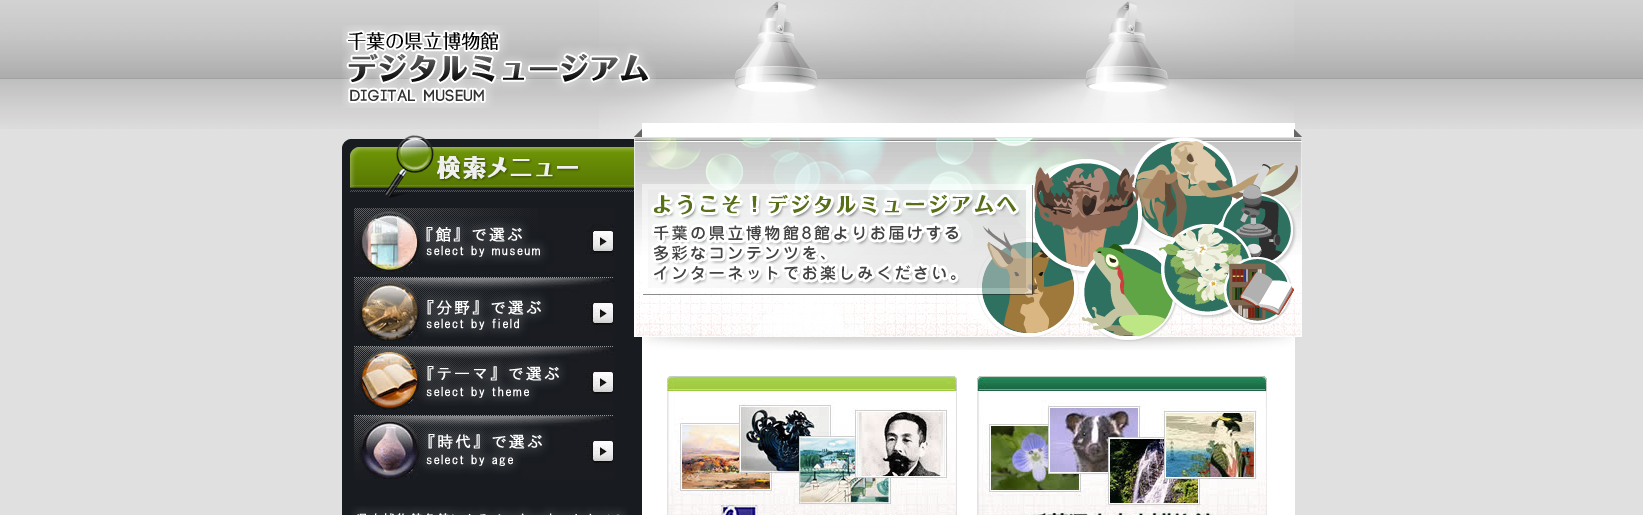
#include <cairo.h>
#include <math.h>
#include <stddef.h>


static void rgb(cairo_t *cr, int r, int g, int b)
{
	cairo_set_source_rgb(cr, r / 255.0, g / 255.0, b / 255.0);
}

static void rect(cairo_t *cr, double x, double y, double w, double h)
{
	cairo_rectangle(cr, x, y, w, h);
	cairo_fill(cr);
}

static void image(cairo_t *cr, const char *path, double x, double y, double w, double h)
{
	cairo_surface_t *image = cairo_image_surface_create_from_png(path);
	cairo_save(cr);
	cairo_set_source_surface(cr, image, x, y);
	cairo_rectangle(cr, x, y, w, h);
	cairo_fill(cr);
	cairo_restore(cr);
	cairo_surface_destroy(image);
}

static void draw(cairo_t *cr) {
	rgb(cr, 224, 224, 224);
	cairo_paint(cr);
	image(cr, "image0.png", 0, 0, 1643, 129);
	image(cr, "image1.png", 599, 0, 695, 139);
	image(cr, "image2.png", 342, 25, 314, 83);
	image(cr, "image3.png", 342, 135, 292, 73);
	rgb(cr, 24, 27, 32);
	rect(cr, 342, 208, 300, 307);
	image(cr, "image4.png", 354, 208, 260, 64);
	image(cr, "image5.png", 354, 277, 260, 64);
	image(cr, "image6.png", 354, 346, 260, 64);
	image(cr, "image7.png", 354, 415, 260, 64);
	image(cr, "image8.png", 351, 506, 277, 9);
	rgb(cr, 255, 255, 255);
	rect(cr, 642, 123, 653, 392);
	image(cr, "image9.png", 634, 129, 668, 221);
	image(cr, "image10.png", 667, 376, 290, 139);
	image(cr, "image11.png", 977, 376, 290, 139);
}

int main(void) {
	cairo_surface_t *surface = cairo_image_surface_create(CAIRO_FORMAT_RGB24, 1643, 515);
	cairo_t *cr = cairo_create(surface);
	cairo_font_options_t *options = cairo_font_options_create();
	cairo_font_options_set_hint_metrics(options, CAIRO_HINT_METRICS_OFF);
	cairo_font_options_set_hint_style(options, CAIRO_HINT_STYLE_NONE);
	cairo_set_font_options(cr, options);
	cairo_set_miter_limit(cr, 4);
	draw(cr);
	cairo_surface_write_to_png(surface, "render.png");
	cairo_font_options_destroy(options);
	cairo_destroy(cr);
	cairo_surface_destroy(surface);
	return 0;
}
